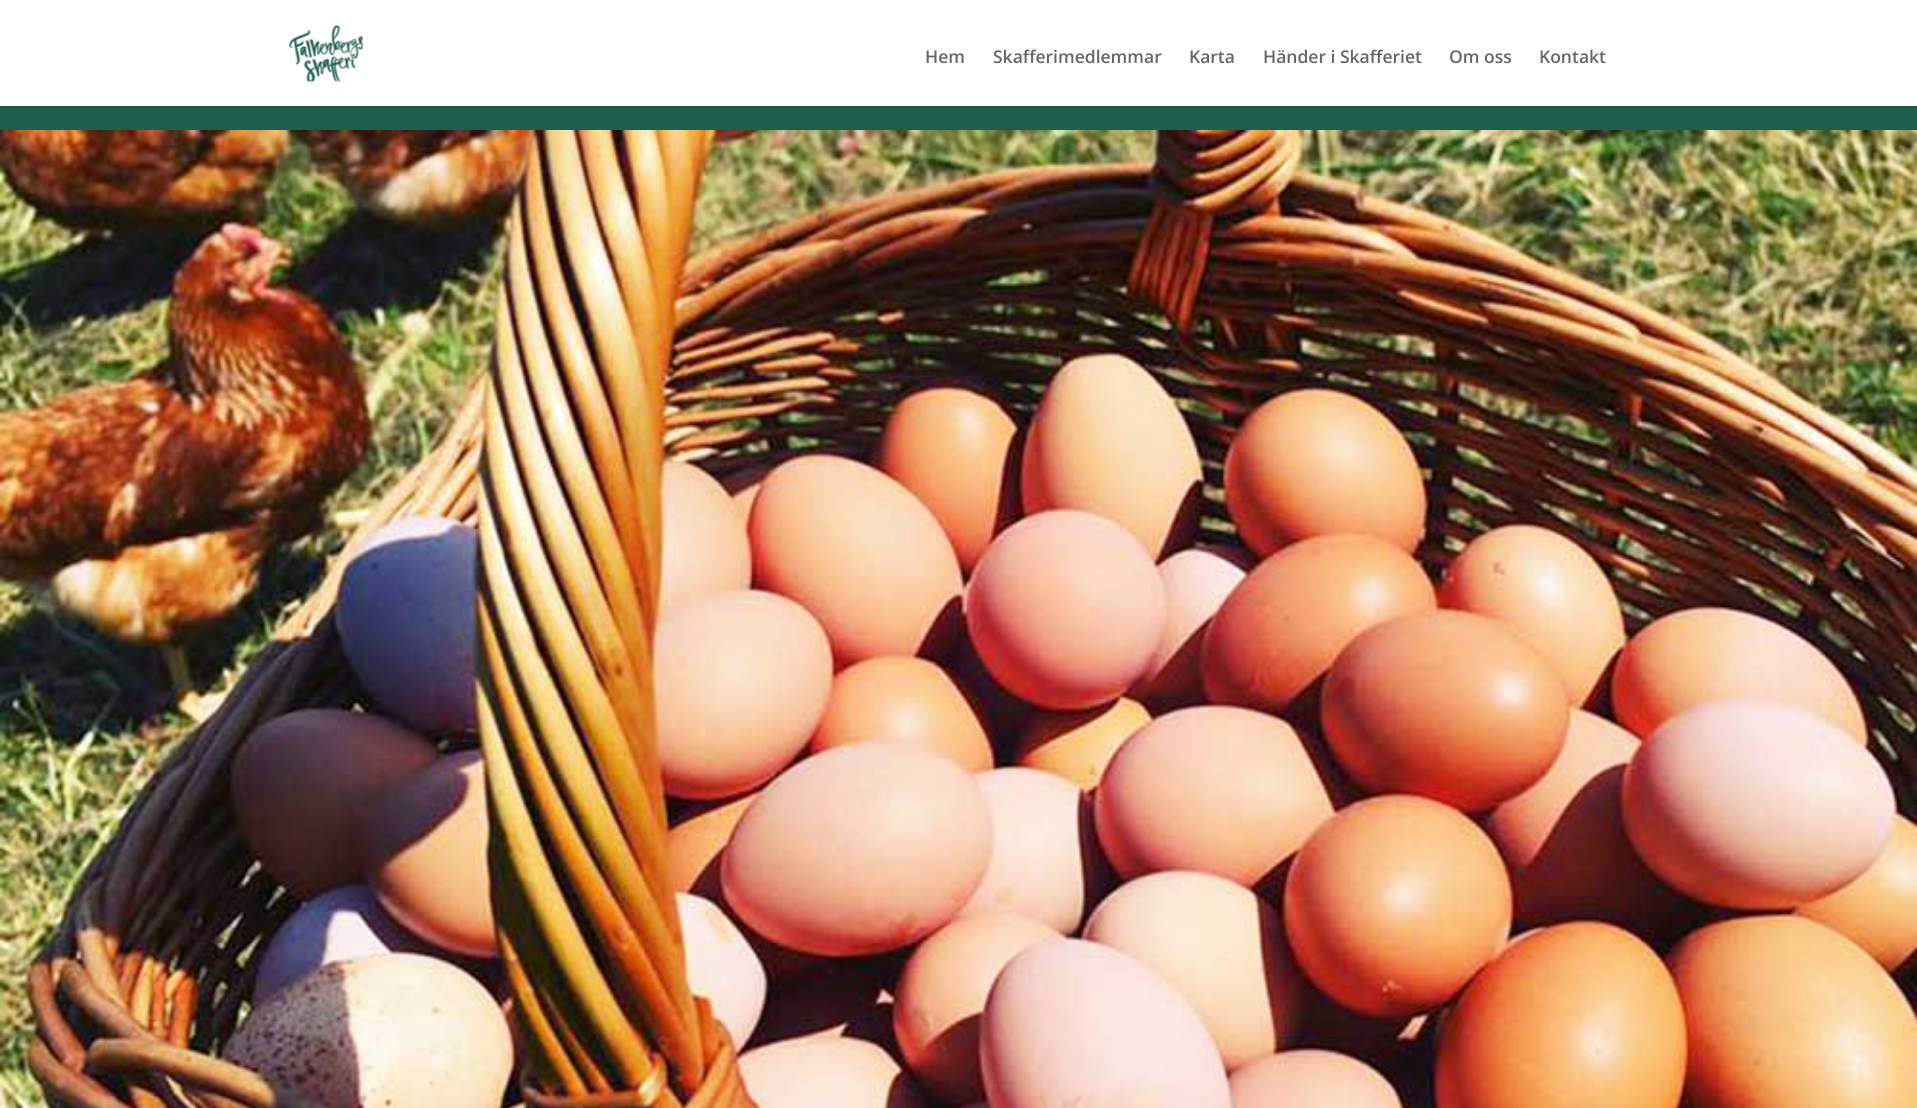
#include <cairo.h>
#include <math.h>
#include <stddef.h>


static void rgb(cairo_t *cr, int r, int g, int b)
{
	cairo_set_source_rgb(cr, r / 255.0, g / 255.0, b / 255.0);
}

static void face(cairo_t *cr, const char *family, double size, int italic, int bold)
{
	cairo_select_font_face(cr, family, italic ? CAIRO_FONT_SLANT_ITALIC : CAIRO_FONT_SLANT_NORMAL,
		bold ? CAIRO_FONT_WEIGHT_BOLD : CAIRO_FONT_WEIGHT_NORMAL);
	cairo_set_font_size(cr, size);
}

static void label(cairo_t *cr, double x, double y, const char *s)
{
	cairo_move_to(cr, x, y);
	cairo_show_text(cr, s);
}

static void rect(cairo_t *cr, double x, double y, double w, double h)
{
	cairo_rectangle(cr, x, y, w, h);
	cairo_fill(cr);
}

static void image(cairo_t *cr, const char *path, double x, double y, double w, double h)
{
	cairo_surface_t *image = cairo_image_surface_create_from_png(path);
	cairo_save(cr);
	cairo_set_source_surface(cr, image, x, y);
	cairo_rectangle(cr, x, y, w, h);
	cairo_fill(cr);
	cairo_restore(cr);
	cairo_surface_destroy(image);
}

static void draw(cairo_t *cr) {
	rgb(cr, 30, 94, 79);
	cairo_paint(cr);
	rgb(cr, 27, 85, 71);
	cairo_new_path(cr);
	cairo_move_to(cr, 0, 106);
	cairo_line_to(cr, 0, 108);
	cairo_line_to(cr, 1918, 108);
	cairo_line_to(cr, 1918, 1);
	cairo_line_to(cr, 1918, 106);
	cairo_close_path(cr);
	cairo_fill(cr);
	rgb(cr, 255, 255, 255);
	rect(cr, 0, 0, 1917, 106);
	image(cr, "image0.png", 288, 24, 75, 58);
	face(cr, "Open Sans SemiBold", 17.5, 0, 0);
	rgb(cr, 102, 102, 102);
	label(cr, 925, 63, "Hem");
	label(cr, 993, 63, "Skafferimedlemmar");
	label(cr, 1189, 63, "Karta");
	label(cr, 1263, 63, "Händer i Skafferiet");
	label(cr, 1449, 63, "Om oss");
	label(cr, 1539, 63, "Kontakt");
	image(cr, "image1.png", 0, 130, 1917, 978);
}

int main(void) {
	cairo_surface_t *surface = cairo_image_surface_create(CAIRO_FORMAT_RGB24, 1917, 1108);
	cairo_t *cr = cairo_create(surface);
	cairo_font_options_t *options = cairo_font_options_create();
	cairo_font_options_set_hint_metrics(options, CAIRO_HINT_METRICS_OFF);
	cairo_font_options_set_hint_style(options, CAIRO_HINT_STYLE_NONE);
	cairo_set_font_options(cr, options);
	cairo_set_miter_limit(cr, 4);
	draw(cr);
	cairo_surface_write_to_png(surface, "render.png");
	cairo_font_options_destroy(options);
	cairo_destroy(cr);
	cairo_surface_destroy(surface);
	return 0;
}
